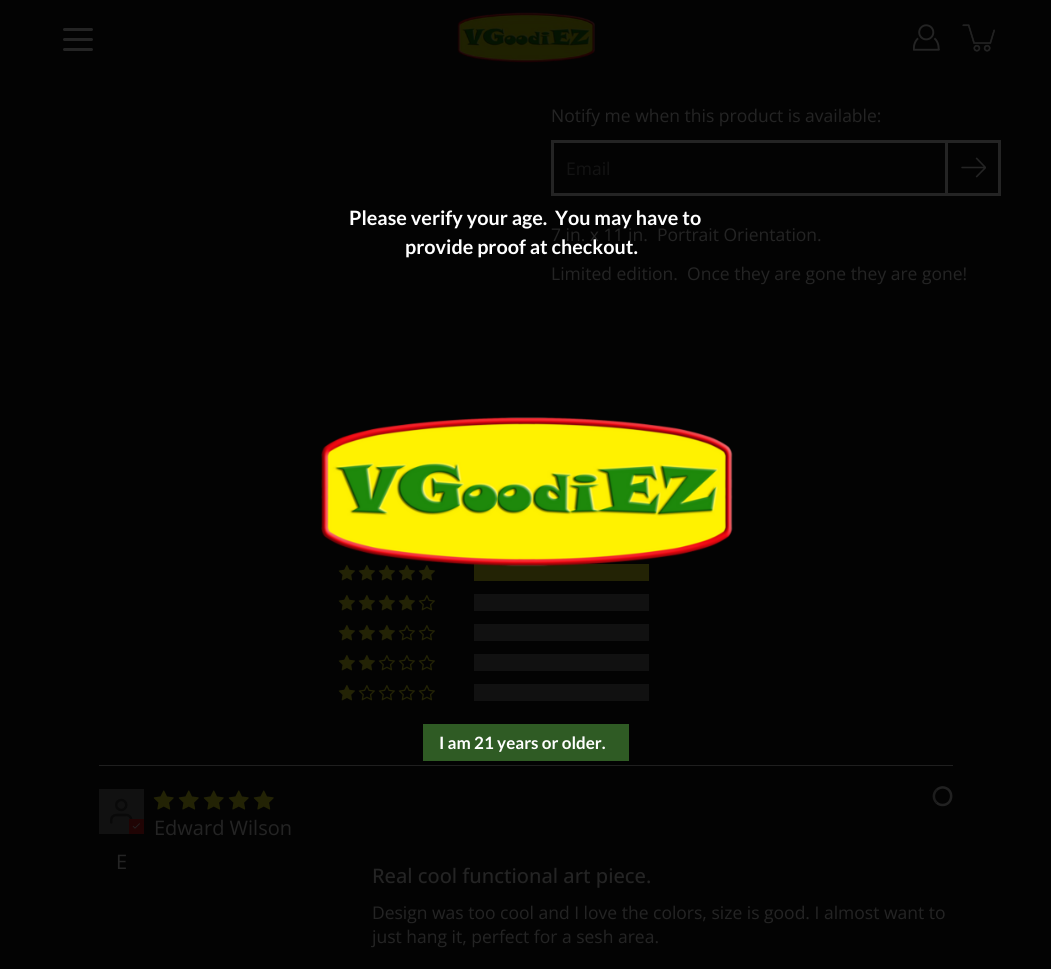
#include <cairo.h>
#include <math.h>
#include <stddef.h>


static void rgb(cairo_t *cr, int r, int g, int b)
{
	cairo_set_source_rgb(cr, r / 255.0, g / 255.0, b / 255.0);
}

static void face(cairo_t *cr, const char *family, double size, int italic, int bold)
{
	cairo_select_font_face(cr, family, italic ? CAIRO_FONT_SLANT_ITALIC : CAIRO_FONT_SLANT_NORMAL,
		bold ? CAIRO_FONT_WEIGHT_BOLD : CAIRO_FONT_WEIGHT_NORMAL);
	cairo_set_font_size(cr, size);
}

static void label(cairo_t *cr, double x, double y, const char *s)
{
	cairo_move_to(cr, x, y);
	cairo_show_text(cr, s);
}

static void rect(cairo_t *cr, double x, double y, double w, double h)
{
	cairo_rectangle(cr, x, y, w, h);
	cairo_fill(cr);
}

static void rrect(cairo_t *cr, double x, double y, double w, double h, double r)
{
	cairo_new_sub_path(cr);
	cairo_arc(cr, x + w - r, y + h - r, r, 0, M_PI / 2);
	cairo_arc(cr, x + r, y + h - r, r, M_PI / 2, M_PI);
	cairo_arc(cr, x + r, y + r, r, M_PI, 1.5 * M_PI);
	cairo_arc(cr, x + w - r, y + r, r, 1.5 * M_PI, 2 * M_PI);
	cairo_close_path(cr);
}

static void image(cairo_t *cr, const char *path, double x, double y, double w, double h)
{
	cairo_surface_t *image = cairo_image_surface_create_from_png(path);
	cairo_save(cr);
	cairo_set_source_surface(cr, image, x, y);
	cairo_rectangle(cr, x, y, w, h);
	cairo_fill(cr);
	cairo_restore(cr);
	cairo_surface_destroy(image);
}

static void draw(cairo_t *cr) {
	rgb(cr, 3, 3, 3);
	cairo_paint(cr);
	image(cr, "image0.png", 457, 12, 138, 51);
	rgb(cr, 36, 36, 36);
	rrect(cr, 63, 38, 30, 3, 1.5);
	cairo_fill(cr);
	rrect(cr, 63, 28, 30, 3, 1.5);
	cairo_fill(cr);
	rrect(cr, 63, 48, 30, 3, 1.5);
	cairo_fill(cr);
	image(cr, "image1.png", 913, 24, 27, 27);
	image(cr, "image2.png", 962, 24, 33, 28);
	face(cr, "Open Sans", 17.5, 0, 0);
	label(cr, 551, 122, "Notify me when this product is available:");
	cairo_rectangle(cr, 552.5, 141.5, 447, 53);
	cairo_set_line_width(cr, 3);
	cairo_stroke(cr);
	rgb(cr, 19, 19, 19);
	label(cr, 566, 175, "Email");
	cairo_rectangle(cr, 946.5, 141.5, 53, 53);
	rgb(cr, 36, 36, 36);
	cairo_stroke(cr);
	image(cr, "image3.png", 961, 157, 25, 21);
	label(cr, 551, 241, "7 in. x 11 in.  Portrait Orientation.");
	label(cr, 551, 280, "Limited edition.  Once they are gone they are gone!");
	image(cr, "image4.png", 338, 565, 17, 16);
	image(cr, "image4.png", 358, 565, 17, 16);
	image(cr, "image4.png", 378, 565, 17, 16);
	image(cr, "image4.png", 398, 565, 17, 16);
	image(cr, "image4.png", 418, 565, 17, 16);
	rgb(cr, 35, 35, 5);
	rect(cr, 474, 564, 175, 17);
	image(cr, "image4.png", 338, 595, 17, 16);
	image(cr, "image4.png", 358, 595, 17, 16);
	image(cr, "image4.png", 378, 595, 17, 16);
	image(cr, "image4.png", 398, 595, 17, 16);
	image(cr, "image5.png", 418, 595, 17, 16);
	rgb(cr, 17, 17, 17);
	rect(cr, 474, 594, 175, 17);
	image(cr, "image4.png", 338, 625, 17, 16);
	image(cr, "image4.png", 358, 625, 17, 16);
	image(cr, "image4.png", 378, 625, 17, 16);
	image(cr, "image5.png", 398, 625, 17, 16);
	image(cr, "image5.png", 418, 625, 17, 16);
	rect(cr, 474, 624, 175, 17);
	image(cr, "image4.png", 338, 655, 17, 16);
	image(cr, "image4.png", 358, 655, 17, 16);
	image(cr, "image5.png", 378, 655, 17, 16);
	image(cr, "image5.png", 398, 655, 17, 16);
	image(cr, "image5.png", 418, 655, 17, 16);
	rect(cr, 474, 654, 175, 17);
	image(cr, "image4.png", 338, 685, 17, 16);
	image(cr, "image5.png", 358, 685, 17, 16);
	image(cr, "image5.png", 378, 685, 17, 16);
	image(cr, "image5.png", 398, 685, 17, 16);
	image(cr, "image5.png", 418, 685, 17, 16);
	rect(cr, 474, 684, 175, 17);
	rgb(cr, 31, 31, 31);
	rect(cr, 99, 765, 854, 1);
	image(cr, "image6.png", 153, 790, 21, 20);
	image(cr, "image6.png", 178, 790, 21, 20);
	image(cr, "image6.png", 203, 790, 21, 20);
	image(cr, "image6.png", 228, 790, 21, 20);
	image(cr, "image6.png", 253, 790, 21, 20);
	cairo_new_path(cr);
	cairo_move_to(cr, 936.5, 790);
	cairo_curve_to(cr, 938.5, 788, 941.5, 787, 944, 787.5);
	cairo_curve_to(cr, 954.5, 789.5, 953, 805, 942.5, 805);
	cairo_curve_to(cr, 940, 805, 938, 804, 936.5, 802.5);
	rgb(cr, 33, 33, 33);
	cairo_set_line_width(cr, 2.5);
	cairo_stroke(cr);
	cairo_new_path(cr);
	cairo_move_to(cr, 936.5, 802.5);
	cairo_curve_to(cr, 933, 799, 933, 793.5, 936.5, 790);
	rgb(cr, 29, 29, 29);
	cairo_stroke(cr);
	face(cr, "Open Sans", 20, 0, 0);
	rgb(cr, 36, 36, 36);
	label(cr, 154, 835, "Edward Wilson");
	rgb(cr, 17, 17, 17);
	rect(cr, 99, 789, 45, 45);
	image(cr, "image7.png", 110, 798, 23, 26);
	rgb(cr, 32, 4, 4);
	rect(cr, 129, 819, 15, 15);
	image(cr, "image8.png", 132, 823, 8, 6);
	rgb(cr, 36, 36, 36);
	label(cr, 116, 869, "E");
	face(cr, "Open Sans Medium", 20, 0, 0);
	label(cr, 372, 883, "Real cool functional art piece.");
	face(cr, "Open Sans", 17.5, 0, 0);
	label(cr, 372, 919, "Design was too cool and I love the colors, size is good. I almost want to");
	label(cr, 372, 943, "just hang it, perfect for a sesh area.");
	face(cr, "Lato", 19.8, 0, 1);
	rgb(cr, 255, 255, 255);
	label(cr, 349, 225, "Please verify your age.  You may have to");
	label(cr, 405, 254, "provide proof at checkout.");
	image(cr, "image9.png", 321, 417, 412, 150);
	rgb(cr, 47, 91, 36);
	rect(cr, 423, 724, 206, 37);
	face(cr, "Lato", 17, 0, 1);
	rgb(cr, 255, 255, 255);
	label(cr, 439, 749, "I am 21 years or older.");
}

int main(void) {
	cairo_surface_t *surface = cairo_image_surface_create(CAIRO_FORMAT_RGB24, 1051, 969);
	cairo_t *cr = cairo_create(surface);
	cairo_font_options_t *options = cairo_font_options_create();
	cairo_font_options_set_hint_metrics(options, CAIRO_HINT_METRICS_OFF);
	cairo_font_options_set_hint_style(options, CAIRO_HINT_STYLE_NONE);
	cairo_set_font_options(cr, options);
	cairo_set_miter_limit(cr, 4);
	draw(cr);
	cairo_surface_write_to_png(surface, "render.png");
	cairo_font_options_destroy(options);
	cairo_destroy(cr);
	cairo_surface_destroy(surface);
	return 0;
}
